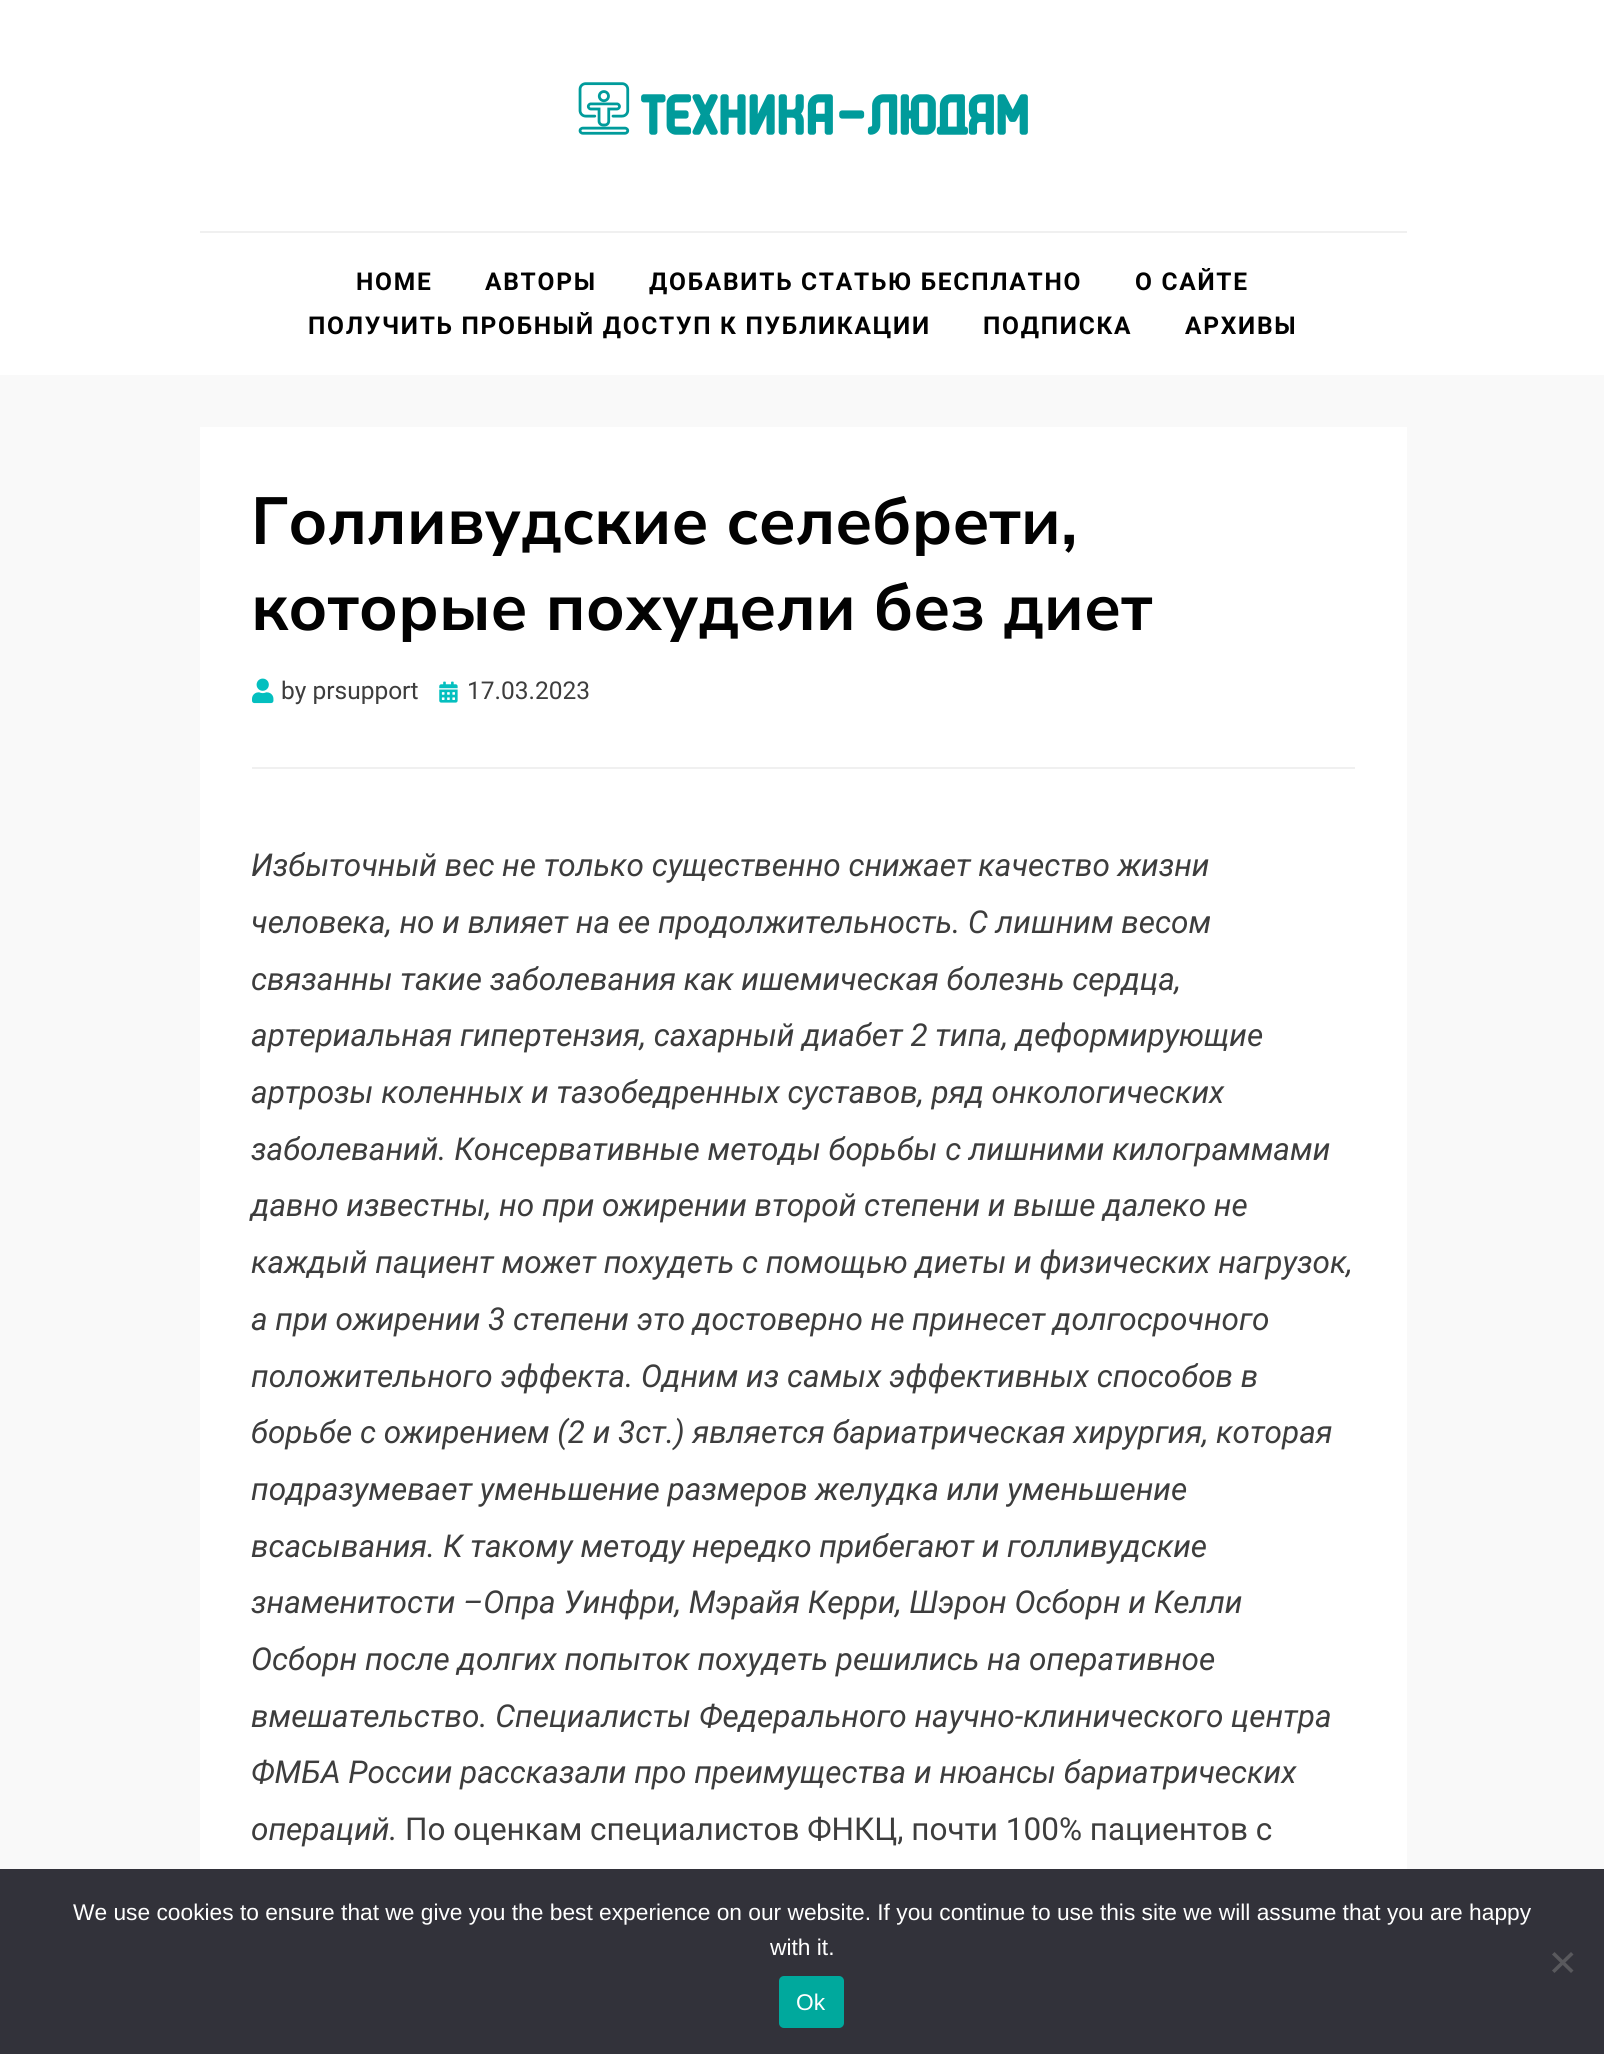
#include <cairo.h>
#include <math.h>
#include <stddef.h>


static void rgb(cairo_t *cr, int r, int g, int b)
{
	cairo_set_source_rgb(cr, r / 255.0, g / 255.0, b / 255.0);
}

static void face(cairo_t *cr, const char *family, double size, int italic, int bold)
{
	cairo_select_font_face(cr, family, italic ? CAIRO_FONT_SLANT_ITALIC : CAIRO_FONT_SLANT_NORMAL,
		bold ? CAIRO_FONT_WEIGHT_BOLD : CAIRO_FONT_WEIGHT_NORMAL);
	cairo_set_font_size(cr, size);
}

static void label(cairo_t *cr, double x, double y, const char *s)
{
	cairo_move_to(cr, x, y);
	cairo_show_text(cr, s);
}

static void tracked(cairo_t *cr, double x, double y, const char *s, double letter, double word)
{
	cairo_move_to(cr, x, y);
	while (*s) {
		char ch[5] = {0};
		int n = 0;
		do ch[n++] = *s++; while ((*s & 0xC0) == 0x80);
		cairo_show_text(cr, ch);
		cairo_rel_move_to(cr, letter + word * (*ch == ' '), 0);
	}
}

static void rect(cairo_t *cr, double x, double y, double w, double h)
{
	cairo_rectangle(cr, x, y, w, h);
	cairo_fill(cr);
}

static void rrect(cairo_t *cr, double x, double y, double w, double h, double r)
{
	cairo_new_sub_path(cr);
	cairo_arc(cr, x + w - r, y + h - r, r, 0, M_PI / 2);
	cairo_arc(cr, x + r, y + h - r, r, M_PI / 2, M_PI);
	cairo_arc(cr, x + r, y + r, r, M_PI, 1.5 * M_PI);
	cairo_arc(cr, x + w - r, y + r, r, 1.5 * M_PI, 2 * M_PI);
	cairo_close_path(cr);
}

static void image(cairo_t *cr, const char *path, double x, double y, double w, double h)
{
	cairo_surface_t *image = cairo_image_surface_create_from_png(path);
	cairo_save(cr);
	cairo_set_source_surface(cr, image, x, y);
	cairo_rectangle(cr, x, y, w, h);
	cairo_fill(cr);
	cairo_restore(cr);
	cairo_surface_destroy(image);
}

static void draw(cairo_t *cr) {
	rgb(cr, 249, 249, 249);
	cairo_paint(cr);
	rgb(cr, 255, 255, 255);
	rect(cr, 0, 0, 1604, 375);
	image(cr, "image0.png", 578, 82, 450, 53);
	rgb(cr, 240, 240, 240);
	rect(cr, 200, 231, 1207, 2);
	face(cr, "Roboto", 24.5, 0, 1);
	rgb(cr, 2, 2, 2);
	tracked(cr, 356, 290, "HOME", 1.75, 0);
	tracked(cr, 485, 290, "АВТОРЫ", 1.75, 0);
	tracked(cr, 649, 290, "ДОБАВИТЬ СТАТЬЮ БЕСПЛАТНО", 1.75, 0);
	tracked(cr, 1135, 290, "О САЙТЕ", 1.75, 0);
	tracked(cr, 308, 334, "ПОЛУЧИТЬ ПРОБНЫЙ ДОСТУП К ПУБЛИКАЦИИ", 1.75, 0);
	tracked(cr, 983, 334, "ПОДПИСКА", 1.75, 0);
	tracked(cr, 1185, 334, "АРХИВЫ", 1.75, 0);
	rgb(cr, 255, 255, 255);
	rect(cr, 200, 427, 1207, 1442);
	rgb(cr, 240, 240, 240);
	rect(cr, 252, 767, 1103, 2);
	face(cr, "Nunito Sans", 66.5, 0, 1);
	rgb(cr, 2, 2, 2);
	label(cr, 251, 544, "Голливудские селебрети,");
	label(cr, 251, 630, "которые похудели без диет");
	image(cr, "image1.png", 252, 678, 22, 26);
	face(cr, "Roboto", 24.5, 0, 0);
	rgb(cr, 61, 61, 61);
	label(cr, 281, 699, "by prsupport");
	image(cr, "image2.png", 439, 681, 19, 22);
	label(cr, 467, 699, "17.03.2023");
	face(cr, "Roboto", 31.5, 1, 0);
	label(cr, 251, 876, "Избыточный вес не только существенно снижает качество жизни");
	label(cr, 251, 933, "человека, но и влияет на ее продолжительность. С лишним весом");
	label(cr, 251, 990, "связанны такие заболевания как ишемическая болезнь сердца,");
	label(cr, 251, 1046, "артериальная гипертензия, сахарный диабет 2 типа, деформирующие");
	label(cr, 251, 1103, "артрозы коленных и тазобедренных суставов, ряд онкологических");
	label(cr, 251, 1160, "заболеваний. Консервативные методы борьбы с лишними килограммами");
	label(cr, 251, 1216, "давно известны, но при ожирении второй степени и выше далеко не");
	label(cr, 251, 1273, "каждый пациент может похудеть с помощью диеты и физических нагрузок,");
	label(cr, 251, 1330, "а при ожирении 3 степени это достоверно не принесет долгосрочного");
	label(cr, 251, 1387, "положительного эффекта. Одним из самых эффективных способов в");
	label(cr, 251, 1443, "борьбе с ожирением (2 и 3ст.) является бариатрическая хирургия, которая");
	label(cr, 251, 1500, "подразумевает уменьшение размеров желудка или уменьшение");
	label(cr, 251, 1557, "всасывания. К такому методу нередко прибегают и голливудские");
	label(cr, 251, 1613, "знаменитости –Опра Уинфри, Мэрайя Керри, Шэрон Осборн и Келли");
	label(cr, 251, 1670, "Осборн после долгих попыток похудеть решились на оперативное");
	label(cr, 251, 1727, "вмешательство. Специалисты Федерального научно-клинического центра");
	label(cr, 251, 1783, "ФМБА России рассказали про преимущества и нюансы бариатрических");
	label(cr, 251, 1840, "операций.");
	face(cr, "Roboto", 31.5, 0, 0);
	label(cr, 405, 1840, "По оценкам специалистов ФНКЦ, почти 100% пациентов с");
	rgb(cr, 50, 50, 58);
	rect(cr, 0, 1869, 1604, 185);
	face(cr, "Liberation Sans", 22.75, 0, 0);
	rgb(cr, 255, 255, 255);
	label(cr, 73, 1920, "We use cookies to ensure that we give you the best experience on our website. If you continue to use this site we will assume that you are happy");
	label(cr, 770, 1955, "with it.");
	rgb(cr, 89, 89, 93);
	cairo_new_path(cr);
	cairo_move_to(cr, 1571, 1952);
	cairo_line_to(cr, 1573.5, 1954.5);
	cairo_line_to(cr, 1554.5, 1973);
	cairo_line_to(cr, 1552, 1970.5);
	cairo_close_path(cr);
	cairo_fill(cr);
	cairo_new_path(cr);
	cairo_move_to(cr, 1552, 1954.5);
	cairo_line_to(cr, 1554.5, 1952);
	cairo_line_to(cr, 1573.5, 1970.5);
	cairo_line_to(cr, 1571, 1973);
	cairo_close_path(cr);
	cairo_fill(cr);
	rgb(cr, 0, 169, 157);
	rrect(cr, 779, 1976, 65, 52, 5);
	cairo_fill(cr);
	rgb(cr, 255, 255, 255);
	label(cr, 796, 2010, "Ok");
}

int main(void) {
	cairo_surface_t *surface = cairo_image_surface_create(CAIRO_FORMAT_RGB24, 1604, 2054);
	cairo_t *cr = cairo_create(surface);
	cairo_font_options_t *options = cairo_font_options_create();
	cairo_font_options_set_hint_metrics(options, CAIRO_HINT_METRICS_OFF);
	cairo_font_options_set_hint_style(options, CAIRO_HINT_STYLE_NONE);
	cairo_set_font_options(cr, options);
	cairo_set_miter_limit(cr, 4);
	draw(cr);
	cairo_surface_write_to_png(surface, "render.png");
	cairo_font_options_destroy(options);
	cairo_destroy(cr);
	cairo_surface_destroy(surface);
	return 0;
}
